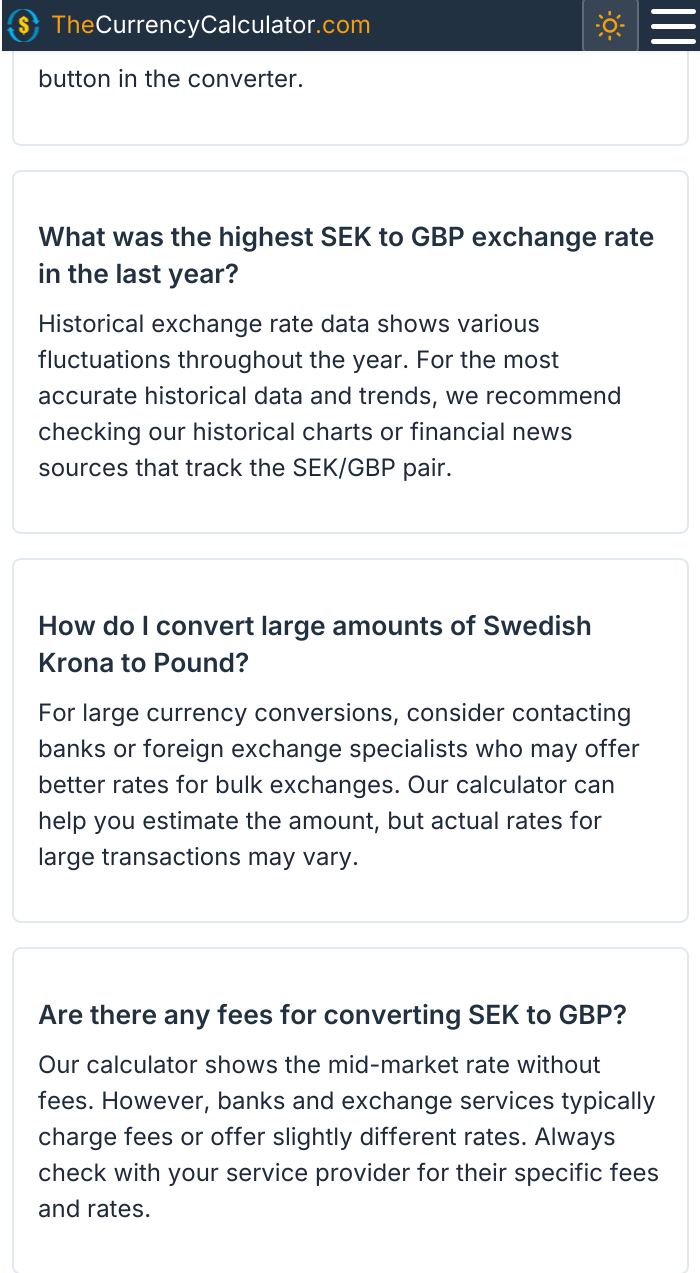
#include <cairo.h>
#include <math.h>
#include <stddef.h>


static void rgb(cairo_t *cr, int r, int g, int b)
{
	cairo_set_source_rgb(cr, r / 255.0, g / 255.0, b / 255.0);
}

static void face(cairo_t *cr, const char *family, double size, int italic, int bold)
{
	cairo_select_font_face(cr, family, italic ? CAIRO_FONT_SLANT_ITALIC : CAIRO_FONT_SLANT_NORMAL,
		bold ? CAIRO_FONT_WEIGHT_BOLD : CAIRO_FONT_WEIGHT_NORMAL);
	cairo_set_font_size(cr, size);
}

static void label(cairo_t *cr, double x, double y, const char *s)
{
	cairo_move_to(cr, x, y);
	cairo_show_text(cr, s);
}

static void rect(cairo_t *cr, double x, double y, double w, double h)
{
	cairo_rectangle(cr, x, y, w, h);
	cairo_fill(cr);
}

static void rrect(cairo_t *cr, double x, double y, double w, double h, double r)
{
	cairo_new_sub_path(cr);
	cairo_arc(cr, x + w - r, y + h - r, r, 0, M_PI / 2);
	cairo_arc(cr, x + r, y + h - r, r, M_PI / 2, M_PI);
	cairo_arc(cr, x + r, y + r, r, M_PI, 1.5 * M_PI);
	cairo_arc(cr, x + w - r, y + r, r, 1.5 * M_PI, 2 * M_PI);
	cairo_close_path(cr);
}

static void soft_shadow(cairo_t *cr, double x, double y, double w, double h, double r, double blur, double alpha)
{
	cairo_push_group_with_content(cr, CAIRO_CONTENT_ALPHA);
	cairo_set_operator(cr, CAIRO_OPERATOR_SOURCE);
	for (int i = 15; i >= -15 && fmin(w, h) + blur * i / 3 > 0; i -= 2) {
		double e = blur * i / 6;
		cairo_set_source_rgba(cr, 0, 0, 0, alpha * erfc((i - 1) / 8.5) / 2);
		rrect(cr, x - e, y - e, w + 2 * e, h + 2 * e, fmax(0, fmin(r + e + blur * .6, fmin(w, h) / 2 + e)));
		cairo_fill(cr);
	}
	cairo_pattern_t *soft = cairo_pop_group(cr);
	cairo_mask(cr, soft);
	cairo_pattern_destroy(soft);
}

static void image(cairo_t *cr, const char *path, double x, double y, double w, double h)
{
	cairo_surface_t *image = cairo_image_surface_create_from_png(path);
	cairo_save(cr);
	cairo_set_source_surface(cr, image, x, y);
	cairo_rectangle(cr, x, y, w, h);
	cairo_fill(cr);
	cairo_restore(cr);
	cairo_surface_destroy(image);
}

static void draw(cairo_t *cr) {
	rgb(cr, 255, 255, 255);
	cairo_paint(cr);
	rrect(cr, 13, -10, 675, 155, 8);
	rgb(cr, 226, 232, 240);
	cairo_stroke(cr);
	rgb(cr, 0, 0, 0);
	soft_shadow(cr, 2, 2, 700, 51, 0, 1.5, 0.05);
	rgb(cr, 34, 49, 66);
	rect(cr, 2, 0, 698, 51);
	image(cr, "image0.png", 6, 9, 34, 33);
	face(cr, "Inter", 24, 0, 0);
	rgb(cr, 245, 158, 11);
	label(cr, 51, 33, "The");
	rgb(cr, 255, 255, 255);
	label(cr, 95, 33, "CurrencyCalculator");
	rgb(cr, 245, 158, 11);
	label(cr, 315, 33, ".com");
	cairo_set_source_rgba(cr, 1, 1, 1, 0.1);
	rrect(cr, 582, -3, 57, 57, 6);
	cairo_fill(cr);
	rrect(cr, 583, -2, 55, 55, 5);
	cairo_set_source_rgba(cr, 1, 1, 1, 0.2);
	cairo_stroke(cr);
	image(cr, "image1.png", 596, 11, 29, 30);
	rgb(cr, 255, 255, 255);
	rrect(cr, 651, 9, 45, 5, 2.5);
	cairo_fill(cr);
	rrect(cr, 651, 24, 45, 5, 2.5);
	cairo_fill(cr);
	rrect(cr, 651, 39, 45, 5, 2.5);
	cairo_fill(cr);
	rgb(cr, 30, 41, 59);
	label(cr, 38, 87, "button in the converter.");
	rrect(cr, 13, 171, 675, 362, 8);
	rgb(cr, 226, 232, 240);
	cairo_stroke(cr);
	face(cr, "Inter SemiBold", 26.4, 0, 0);
	rgb(cr, 34, 49, 66);
	label(cr, 38, 246, "What was the highest SEK to GBP exchange rate");
	label(cr, 38, 283, "in the last year?");
	face(cr, "Inter", 24, 0, 0);
	rgb(cr, 30, 41, 59);
	label(cr, 38, 332, "Historical exchange rate data shows various");
	label(cr, 38, 368, "fluctuations throughout the year. For the most");
	label(cr, 38, 404, "accurate historical data and trends, we recommend");
	label(cr, 38, 440, "checking our historical charts or financial news");
	label(cr, 38, 476, "sources that track the SEK/GBP pair.");
	rrect(cr, 13, 559, 675, 363, 8);
	rgb(cr, 226, 232, 240);
	cairo_stroke(cr);
	face(cr, "Inter SemiBold", 26.4, 0, 0);
	rgb(cr, 34, 49, 66);
	label(cr, 38, 635, "How do I convert large amounts of Swedish");
	label(cr, 38, 672, "Krona to Pound?");
	face(cr, "Inter", 24, 0, 0);
	rgb(cr, 30, 41, 59);
	label(cr, 38, 721, "For large currency conversions, consider contacting");
	label(cr, 38, 757, "banks or foreign exchange specialists who may offer");
	label(cr, 38, 793, "better rates for bulk exchanges. Our calculator can");
	label(cr, 38, 829, "help you estimate the amount, but actual rates for");
	label(cr, 38, 865, "large transactions may vary.");
	rrect(cr, 13, 948, 675, 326, 8);
	rgb(cr, 226, 232, 240);
	cairo_stroke(cr);
	face(cr, "Inter SemiBold", 26.4, 0, 0);
	rgb(cr, 34, 49, 66);
	label(cr, 38, 1024, "Are there any fees for converting SEK to GBP?");
	face(cr, "Inter", 24, 0, 0);
	rgb(cr, 30, 41, 59);
	label(cr, 38, 1073, "Our calculator shows the mid-market rate without");
	label(cr, 38, 1109, "fees. However, banks and exchange services typically");
	label(cr, 38, 1145, "charge fees or offer slightly different rates. Always");
	label(cr, 38, 1181, "check with your service provider for their specific fees");
	label(cr, 38, 1217, "and rates.");
}

int main(void) {
	cairo_surface_t *surface = cairo_image_surface_create(CAIRO_FORMAT_RGB24, 700, 1273);
	cairo_t *cr = cairo_create(surface);
	cairo_font_options_t *options = cairo_font_options_create();
	cairo_font_options_set_hint_metrics(options, CAIRO_HINT_METRICS_OFF);
	cairo_font_options_set_hint_style(options, CAIRO_HINT_STYLE_NONE);
	cairo_set_font_options(cr, options);
	cairo_set_miter_limit(cr, 4);
	draw(cr);
	cairo_surface_write_to_png(surface, "render.png");
	cairo_font_options_destroy(options);
	cairo_destroy(cr);
	cairo_surface_destroy(surface);
	return 0;
}
